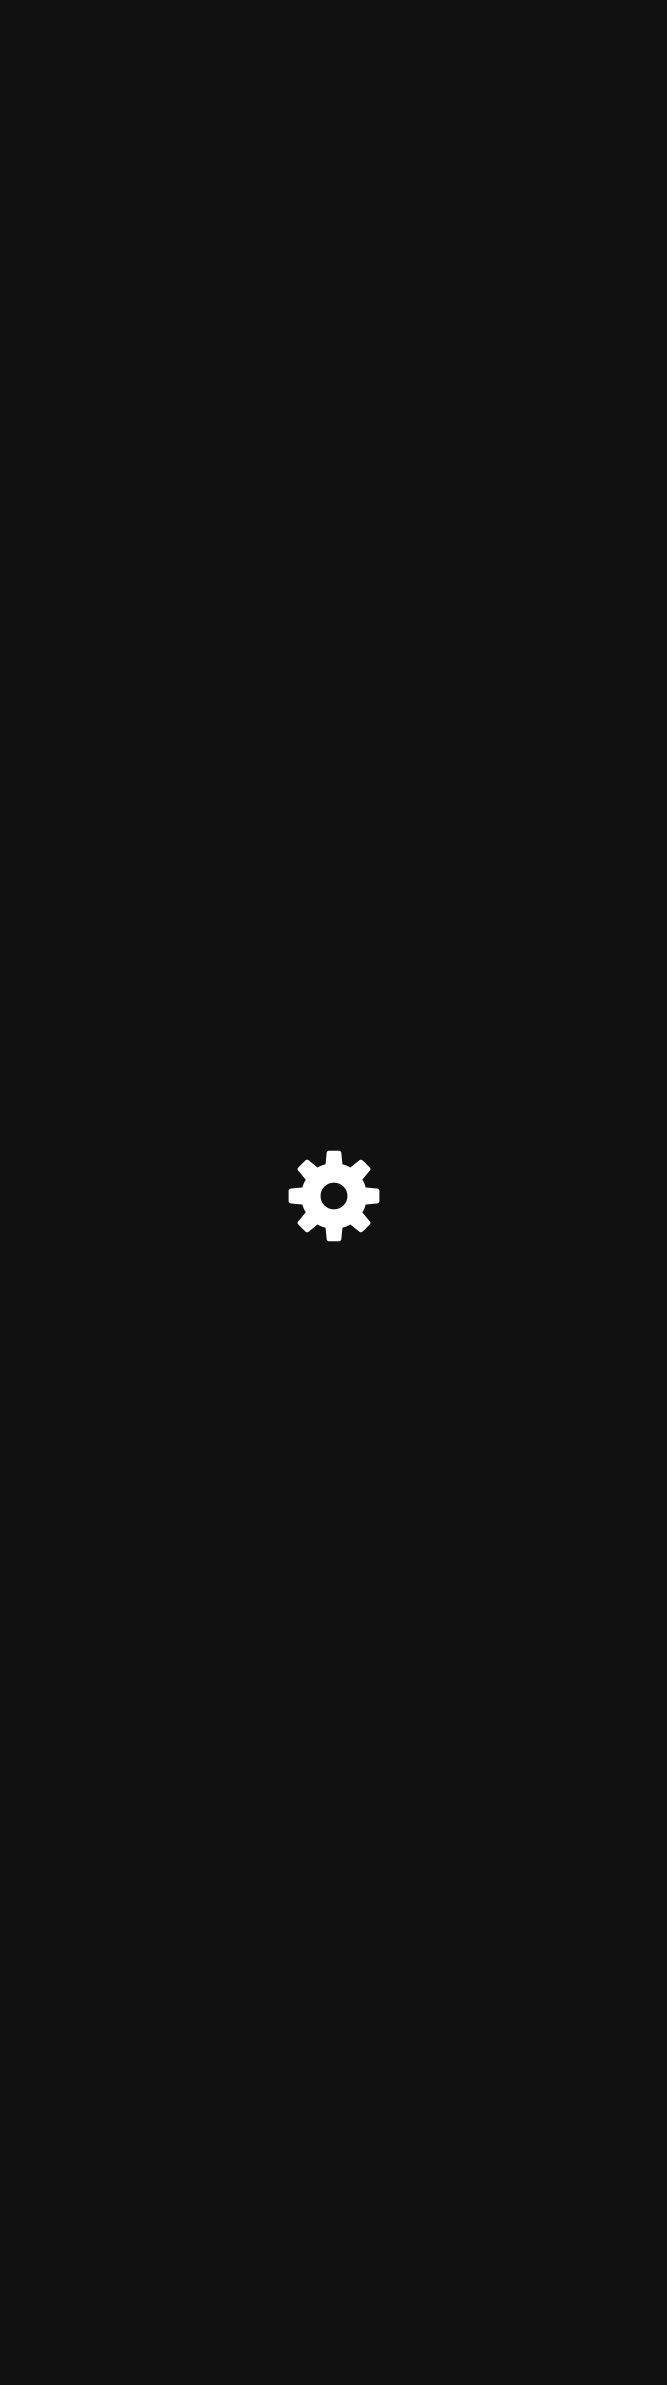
#include <cairo.h>
#include <math.h>
#include <stddef.h>


static void rgb(cairo_t *cr, int r, int g, int b)
{
	cairo_set_source_rgb(cr, r / 255.0, g / 255.0, b / 255.0);
}

static void image(cairo_t *cr, const char *path, double x, double y, double w, double h)
{
	cairo_surface_t *image = cairo_image_surface_create_from_png(path);
	cairo_save(cr);
	cairo_set_source_surface(cr, image, x, y);
	cairo_rectangle(cr, x, y, w, h);
	cairo_fill(cr);
	cairo_restore(cr);
	cairo_surface_destroy(image);
}

static void draw(cairo_t *cr) {
	rgb(cr, 17, 17, 17);
	cairo_paint(cr);
	image(cr, "image0.png", 288, 1150, 92, 92);
}

int main(void) {
	cairo_surface_t *surface = cairo_image_surface_create(CAIRO_FORMAT_RGB24, 667, 2385);
	cairo_t *cr = cairo_create(surface);
	cairo_font_options_t *options = cairo_font_options_create();
	cairo_font_options_set_hint_metrics(options, CAIRO_HINT_METRICS_OFF);
	cairo_font_options_set_hint_style(options, CAIRO_HINT_STYLE_NONE);
	cairo_set_font_options(cr, options);
	cairo_set_miter_limit(cr, 4);
	draw(cr);
	cairo_surface_write_to_png(surface, "render.png");
	cairo_font_options_destroy(options);
	cairo_destroy(cr);
	cairo_surface_destroy(surface);
	return 0;
}
